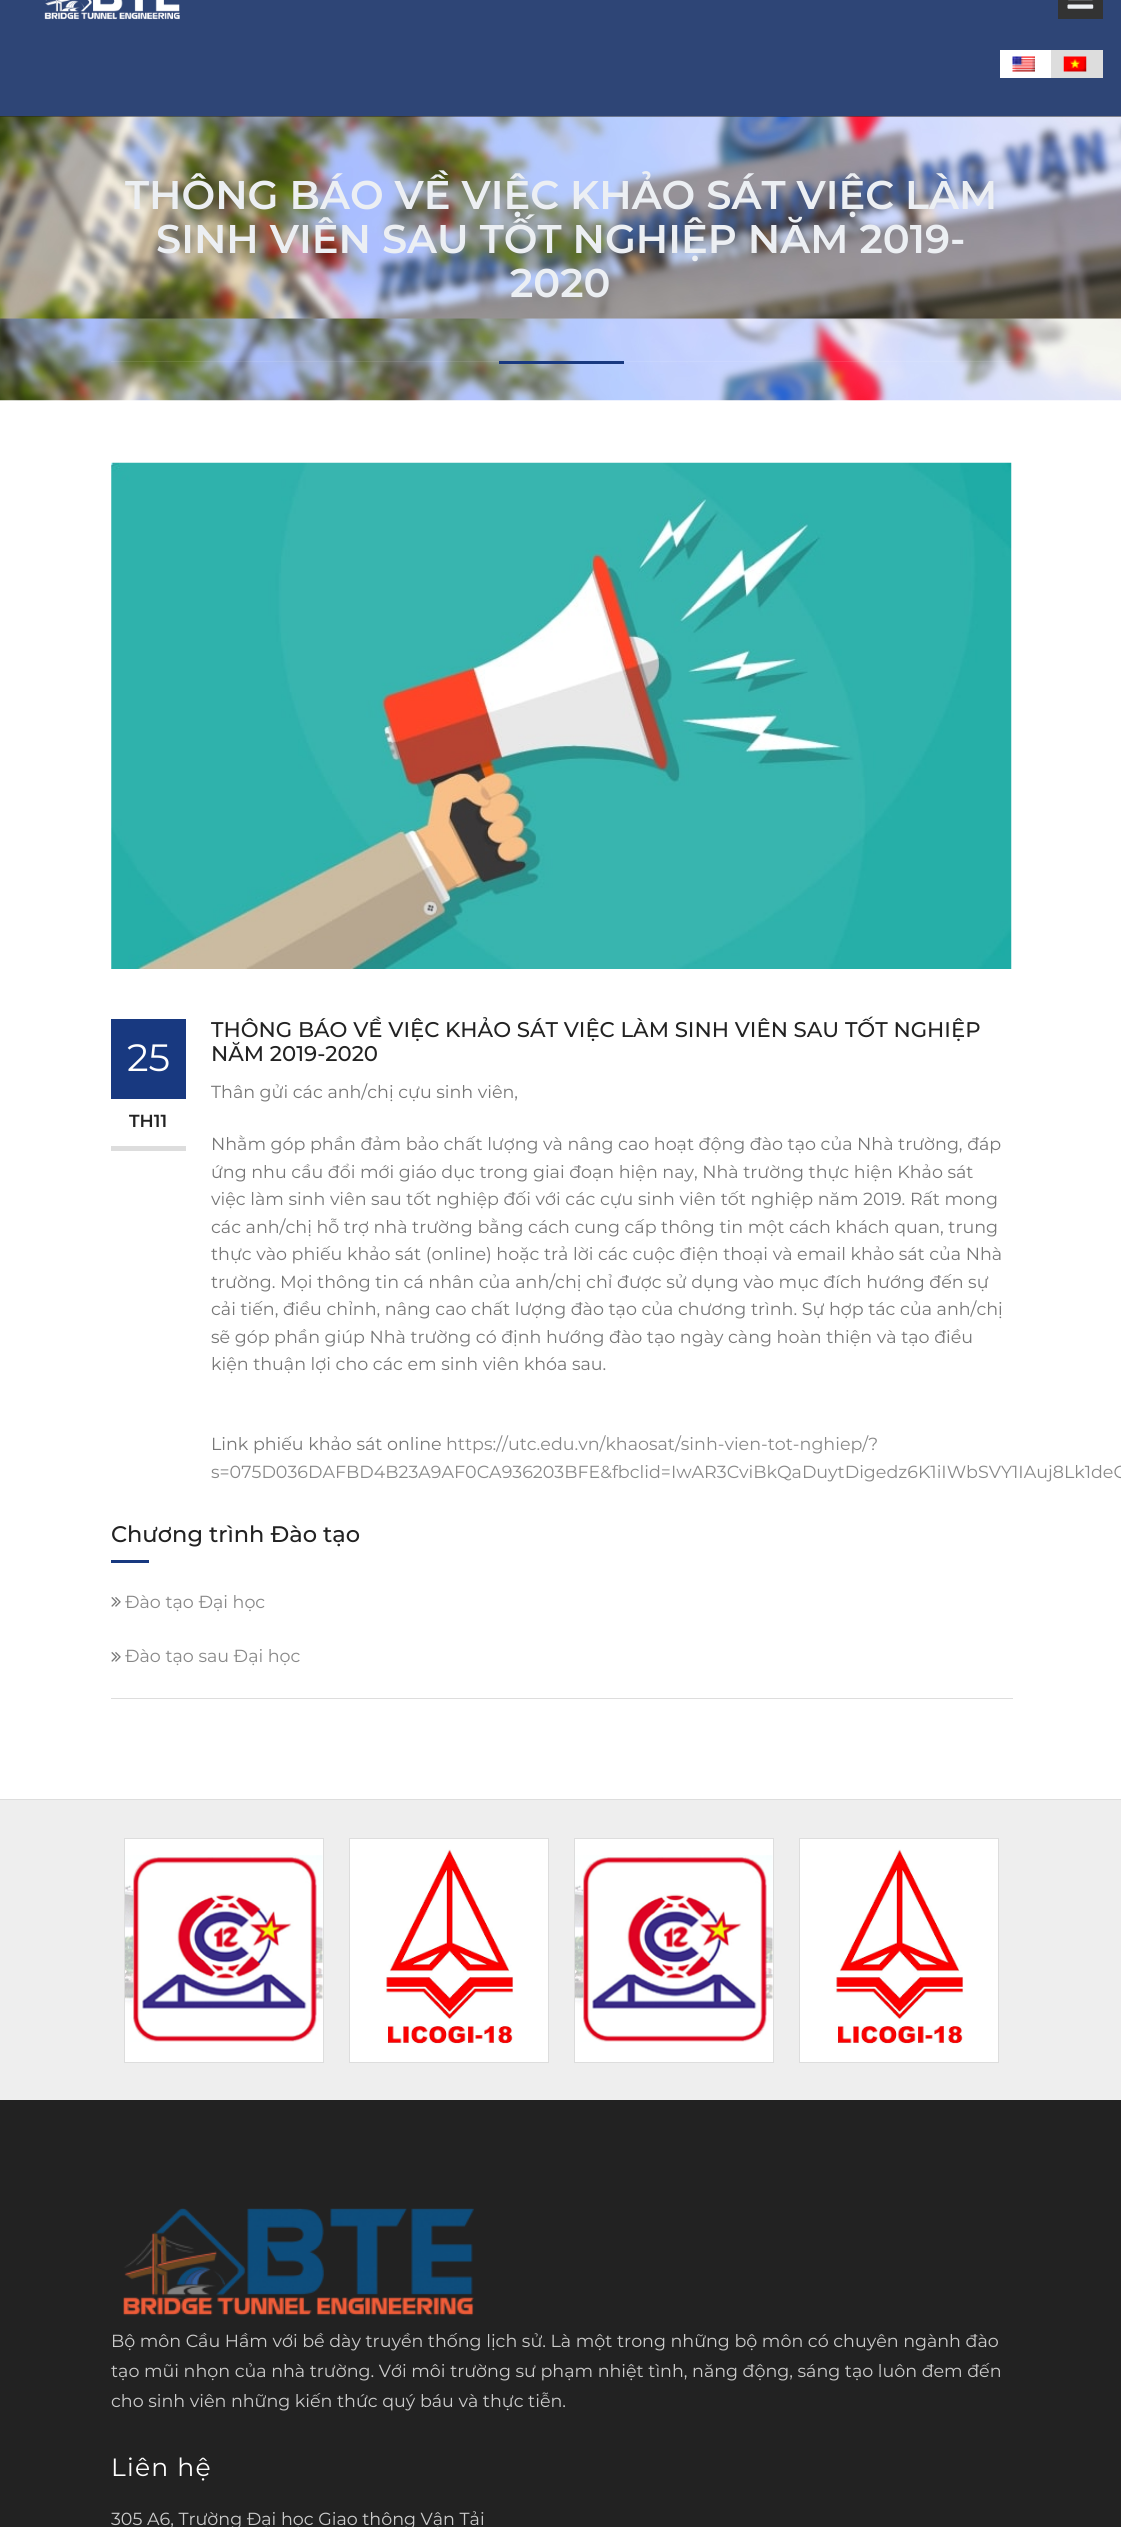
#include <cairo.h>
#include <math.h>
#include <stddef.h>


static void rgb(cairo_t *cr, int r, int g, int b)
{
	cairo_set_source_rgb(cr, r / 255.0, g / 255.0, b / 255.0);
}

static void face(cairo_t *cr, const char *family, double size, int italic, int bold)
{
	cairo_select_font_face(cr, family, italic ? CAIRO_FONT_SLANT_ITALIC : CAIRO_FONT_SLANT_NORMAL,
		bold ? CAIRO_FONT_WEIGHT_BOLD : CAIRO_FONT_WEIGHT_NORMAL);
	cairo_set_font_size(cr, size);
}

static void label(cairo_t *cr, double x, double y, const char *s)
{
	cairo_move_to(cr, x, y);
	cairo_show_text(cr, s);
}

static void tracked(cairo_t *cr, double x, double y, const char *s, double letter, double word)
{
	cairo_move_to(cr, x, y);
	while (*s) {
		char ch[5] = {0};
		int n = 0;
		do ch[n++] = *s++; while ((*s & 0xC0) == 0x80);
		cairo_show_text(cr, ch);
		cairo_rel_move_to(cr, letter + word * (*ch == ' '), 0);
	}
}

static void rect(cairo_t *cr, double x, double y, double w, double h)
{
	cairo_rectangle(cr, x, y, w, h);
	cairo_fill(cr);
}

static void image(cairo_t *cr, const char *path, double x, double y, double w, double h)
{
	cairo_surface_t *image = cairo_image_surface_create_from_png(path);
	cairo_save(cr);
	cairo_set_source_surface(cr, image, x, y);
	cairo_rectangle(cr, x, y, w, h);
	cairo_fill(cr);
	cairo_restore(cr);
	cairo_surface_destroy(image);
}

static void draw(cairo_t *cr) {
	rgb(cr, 46, 69, 118);
	cairo_paint(cr);
	image(cr, "image0.png", 44, 0, 136, 20);
	rgb(cr, 51, 51, 51);
	rect(cr, 1058, 0, 45, 19);
	image(cr, "image1.png", 1067, 0, 27, 9);
	rgb(cr, 255, 255, 255);
	rect(cr, 1000, 50, 51, 28);
	image(cr, "image2.png", 1012, 56, 23, 16);
	rgb(cr, 221, 221, 221);
	rect(cr, 1051, 50, 52, 28);
	image(cr, "image3.png", 1063, 56, 24, 16);
	rgb(cr, 34, 34, 34);
	rect(cr, 0, 116, 1121, 1);
	rgb(cr, 255, 255, 255);
	rect(cr, 0, 400, 1121, 1399);
	image(cr, "image4.png", 0, 116, 1121, 285);
	face(cr, "Montserrat SemiBold", 40, 0, 0);
	rgb(cr, 236, 239, 243);
	label(cr, 125, 209, "THÔNG BÁO VỀ VIỆC KHẢO SÁT VIỆC LÀM");
	label(cr, 156, 253, "SINH VIÊN SAU TỐT NGHIỆP NĂM 2019-");
	label(cr, 510, 297, "2020");
	cairo_set_source_rgba(cr, 1, 1, 1, 0.1);
	rect(cr, 111, 361, 900, 1);
	rgb(cr, 24, 57, 128);
	rect(cr, 499, 361, 125, 3);
	image(cr, "image5.png", 111, 462, 901, 507);
	rect(cr, 111, 1019, 75, 80);
	face(cr, "Montserrat", 38, 0, 0);
	rgb(cr, 255, 255, 255);
	label(cr, 127, 1071, "25");
	rgb(cr, 221, 221, 221);
	rect(cr, 111, 1146, 75, 5);
	face(cr, "Montserrat SemiBold", 17.5, 0, 0);
	rgb(cr, 34, 34, 34);
	label(cr, 129, 1127, "TH11");
	face(cr, "Montserrat Medium", 21.25, 0, 0);
	label(cr, 211, 1037, "THÔNG BÁO VỀ VIỆC KHẢO SÁT VIỆC LÀM SINH VIÊN SAU TỐT NGHIỆP");
	label(cr, 211, 1061, "NĂM 2019-2020");
	face(cr, "Montserrat", 17.5, 0, 0);
	rgb(cr, 119, 119, 119);
	label(cr, 211, 1098, "Thân gửi các anh/chị cựu sinh viên,");
	label(cr, 211, 1150, "Nhằm góp phần đảm bảo chất lượng và nâng cao hoạt động đào tạo của Nhà trường, đáp");
	label(cr, 211, 1178, "ứng nhu cầu đổi mới giáo dục trong giai đoạn hiện nay, Nhà trường thực hiện Khảo sát");
	label(cr, 211, 1205, "việc làm sinh viên sau tốt nghiệp đối với các cựu sinh viên tốt nghiệp năm 2019. Rất mong");
	label(cr, 211, 1233, "các anh/chị hỗ trợ nhà trường bằng cách cung cấp thông tin một cách khách quan, trung");
	label(cr, 211, 1260, "thực vào phiếu khảo sát (online) hoặc trả lời các cuộc điện thoại và email khảo sát của Nhà");
	label(cr, 211, 1288, "trường. Mọi thông tin cá nhân của anh/chị chỉ được sử dụng vào mục đích hướng đến sự");
	label(cr, 211, 1315, "cải tiến, điều chỉnh, nâng cao chất lượng đào tạo của chương trình. Sự hợp tác của anh/chị");
	label(cr, 211, 1343, "sẽ góp phần giúp Nhà trường có định hướng đào tạo ngày càng hoàn thiện và tạo điều");
	label(cr, 211, 1370, "kiện thuận lợi cho các em sinh viên khóa sau.");
	label(cr, 211, 1450, "Link phiếu khảo sát online");
	rgb(cr, 136, 136, 136);
	label(cr, 446, 1450, "https://utc.edu.vn/khaosat/sinh-vien-tot-nghiep/?");
	label(cr, 211, 1478, "s=075D036DAFBD4B23A9AF0CA936203BFE&fbclid=IwAR3CviBkQaDuytDigedz6K1iIWbSVY1IAuj8Lk1deG");
	rgb(cr, 221, 221, 221);
	rect(cr, 111, 1698, 902, 1);
	face(cr, "Montserrat Medium", 22.5, 0, 0);
	rgb(cr, 34, 34, 34);
	label(cr, 111, 1542, "Chương trình Đào tạo");
	rgb(cr, 24, 57, 128);
	rect(cr, 111, 1560, 38, 3);
	image(cr, "image6.png", 111, 1597, 10, 10);
	face(cr, "Montserrat", 17.5, 0, 0);
	rgb(cr, 136, 136, 136);
	label(cr, 125, 1608, "Đào tạo Đại học");
	image(cr, "image6.png", 111, 1652, 10, 10);
	label(cr, 125, 1662, "Đào tạo sau Đại học");
	rgb(cr, 238, 238, 238);
	rect(cr, 0, 1800, 1121, 300);
	rgb(cr, 221, 221, 221);
	rect(cr, 0, 1799, 1121, 1);
	rgb(cr, 255, 255, 255);
	rect(cr, 125, 1839, 198, 223);
	image(cr, "image7.png", 125, 1855, 198, 187);
	cairo_rectangle(cr, 124.5, 1838.5, 199, 224);
	rgb(cr, 221, 221, 221);
	cairo_set_line_width(cr, 1);
	cairo_stroke(cr);
	rgb(cr, 255, 255, 255);
	rect(cr, 350, 1839, 198, 223);
	image(cr, "image8.png", 384, 1849, 130, 195);
	cairo_rectangle(cr, 349.5, 1838.5, 199, 224);
	rgb(cr, 221, 221, 221);
	cairo_stroke(cr);
	rgb(cr, 255, 255, 255);
	rect(cr, 575, 1839, 198, 223);
	image(cr, "image7.png", 575, 1855, 198, 187);
	cairo_rectangle(cr, 574.5, 1838.5, 199, 224);
	rgb(cr, 221, 221, 221);
	cairo_stroke(cr);
	rgb(cr, 255, 255, 255);
	rect(cr, 800, 1839, 198, 223);
	image(cr, "image8.png", 834, 1849, 130, 195);
	cairo_rectangle(cr, 799.5, 1838.5, 199, 224);
	rgb(cr, 221, 221, 221);
	cairo_stroke(cr);
	rgb(cr, 34, 34, 34);
	rect(cr, 0, 2100, 1121, 427);
	image(cr, "image9.png", 123, 2208, 351, 108);
	rgb(cr, 204, 204, 204);
	label(cr, 111, 2347, "Bộ môn Cầu Hầm với bề dày truyền thống lịch sử. Là một trong những bộ môn có chuyên ngành đào");
	label(cr, 111, 2377, "tạo mũi nhọn của nhà trường. Với môi trường sư phạm nhiệt tình, năng động, sáng tạo luôn đem đến");
	label(cr, 111, 2407, "cho sinh viên những kiến thức quý báu và thực tiễn.");
	face(cr, "Montserrat", 25, 0, 0);
	rgb(cr, 255, 255, 255);
	tracked(cr, 111, 2476, "Liên hệ", 1.25, 0);
	face(cr, "Montserrat", 17.5, 0, 0);
	rgb(cr, 204, 204, 204);
	label(cr, 111, 2525, "305 A6, Trường Đại học Giao thông Vận Tải");
}

int main(void) {
	cairo_surface_t *surface = cairo_image_surface_create(CAIRO_FORMAT_RGB24, 1121, 2527);
	cairo_t *cr = cairo_create(surface);
	cairo_font_options_t *options = cairo_font_options_create();
	cairo_font_options_set_hint_metrics(options, CAIRO_HINT_METRICS_OFF);
	cairo_font_options_set_hint_style(options, CAIRO_HINT_STYLE_NONE);
	cairo_set_font_options(cr, options);
	cairo_set_miter_limit(cr, 4);
	draw(cr);
	cairo_surface_write_to_png(surface, "render.png");
	cairo_font_options_destroy(options);
	cairo_destroy(cr);
	cairo_surface_destroy(surface);
	return 0;
}
